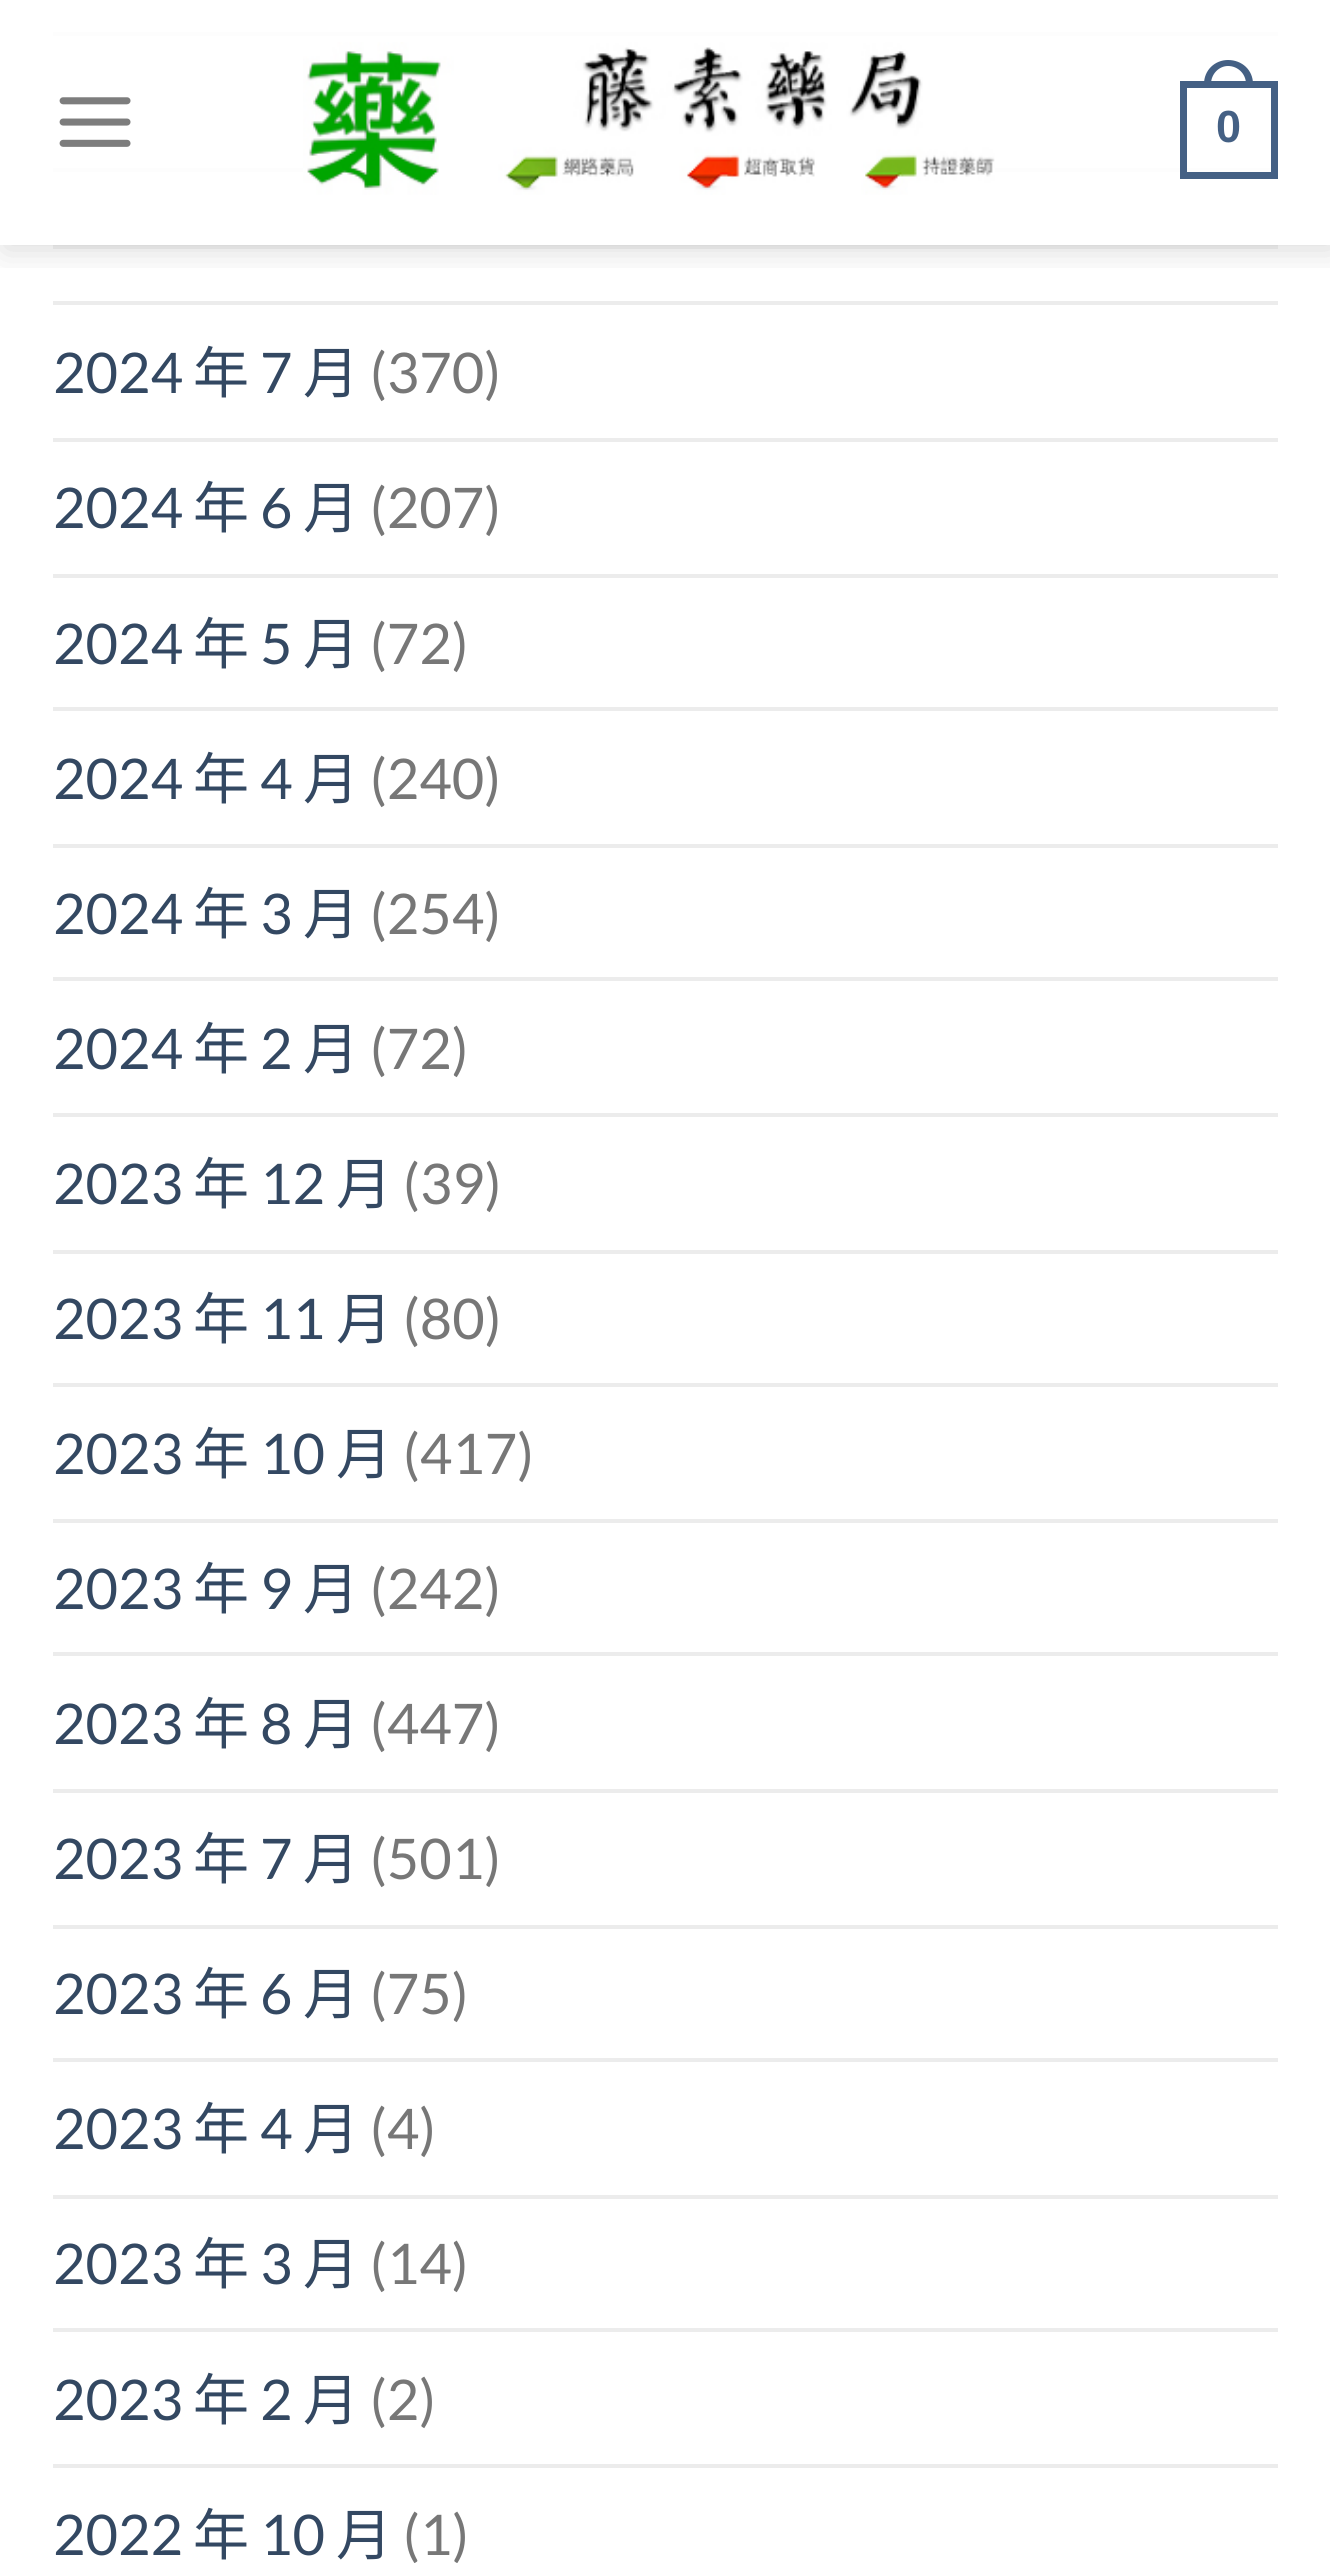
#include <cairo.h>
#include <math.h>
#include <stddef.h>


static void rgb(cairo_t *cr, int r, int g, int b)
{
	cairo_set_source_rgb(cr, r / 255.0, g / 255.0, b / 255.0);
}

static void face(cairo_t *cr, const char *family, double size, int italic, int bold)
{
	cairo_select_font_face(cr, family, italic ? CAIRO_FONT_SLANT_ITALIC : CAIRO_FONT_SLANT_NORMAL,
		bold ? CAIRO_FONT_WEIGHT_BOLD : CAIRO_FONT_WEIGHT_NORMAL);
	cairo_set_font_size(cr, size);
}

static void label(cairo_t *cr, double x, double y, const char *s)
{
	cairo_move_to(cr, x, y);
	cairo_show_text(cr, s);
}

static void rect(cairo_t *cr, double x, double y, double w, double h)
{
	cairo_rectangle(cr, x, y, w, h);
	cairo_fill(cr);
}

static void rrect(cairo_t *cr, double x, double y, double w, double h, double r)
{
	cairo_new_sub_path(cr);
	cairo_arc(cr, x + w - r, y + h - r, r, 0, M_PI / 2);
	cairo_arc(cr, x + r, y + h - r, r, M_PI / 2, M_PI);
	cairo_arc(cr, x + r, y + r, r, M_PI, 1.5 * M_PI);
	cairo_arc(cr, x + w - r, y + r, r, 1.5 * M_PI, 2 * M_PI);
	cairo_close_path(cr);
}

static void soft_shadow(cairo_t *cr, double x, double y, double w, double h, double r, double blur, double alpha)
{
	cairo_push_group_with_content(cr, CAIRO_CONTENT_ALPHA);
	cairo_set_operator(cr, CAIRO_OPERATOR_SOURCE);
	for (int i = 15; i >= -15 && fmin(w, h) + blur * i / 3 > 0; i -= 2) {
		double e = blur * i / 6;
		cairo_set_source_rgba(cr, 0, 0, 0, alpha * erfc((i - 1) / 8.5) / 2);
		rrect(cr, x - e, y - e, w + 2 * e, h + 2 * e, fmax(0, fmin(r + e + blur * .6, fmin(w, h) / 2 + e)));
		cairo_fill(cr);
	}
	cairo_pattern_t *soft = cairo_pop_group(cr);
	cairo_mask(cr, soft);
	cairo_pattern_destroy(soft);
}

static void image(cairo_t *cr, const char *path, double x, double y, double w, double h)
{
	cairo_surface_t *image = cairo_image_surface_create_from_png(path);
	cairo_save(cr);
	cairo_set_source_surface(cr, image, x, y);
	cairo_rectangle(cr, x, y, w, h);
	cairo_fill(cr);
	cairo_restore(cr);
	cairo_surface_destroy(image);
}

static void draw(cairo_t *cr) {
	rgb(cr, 255, 255, 255);
	cairo_paint(cr);
	rgb(cr, 236, 236, 236);
	rect(cr, 53, 32, 1225, 4);
	rect(cr, 53, 168, 1225, 4);
	rect(cr, 53, 301, 1225, 4);
	cairo_save(cr);
	cairo_rectangle(cr, 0, 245, 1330, 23);
	cairo_clip(cr);
	rgb(cr, 0, 0, 0);
	soft_shadow(cr, 4, 4, 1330, 245, 0, 17.5, 0.15);
	cairo_restore(cr);
	cairo_set_source_rgba(cr, 1, 1, 1, 0.9);
	rect(cr, 53, 32, 1225, 140);
	image(cr, "image0.png", 59, 97, 72, 50);
	image(cr, "image1.png", 303, 42, 692, 153);
	cairo_rectangle(cr, 1183.5, 84.5, 91, 91);
	rgb(cr, 68, 96, 132);
	cairo_set_line_width(cr, 7);
	cairo_stroke(cr);
	cairo_set_fill_rule(cr, CAIRO_FILL_RULE_EVEN_ODD);
	cairo_new_path(cr);
	cairo_move_to(cr, 1228, 60);
	cairo_curve_to(cr, 1242, 60, 1253, 70, 1253, 84);
	cairo_line_to(cr, 1253, 88);
	cairo_line_to(cr, 1204, 88);
	cairo_line_to(cr, 1204, 84);
	cairo_curve_to(cr, 1204, 70, 1215, 60, 1228, 60);
	cairo_close_path(cr);
	cairo_move_to(cr, 1228, 66);
	cairo_curve_to(cr, 1238, 66, 1246, 74, 1246, 84);
	cairo_line_to(cr, 1246, 88);
	cairo_line_to(cr, 1211, 88);
	cairo_line_to(cr, 1211, 84);
	cairo_curve_to(cr, 1211, 74, 1219, 66, 1228, 66);
	cairo_close_path(cr);
	cairo_fill(cr);
	face(cr, "Liberation Sans", 45, 0, 1);
	label(cr, 1216, 142, "0");
	cairo_set_source_rgba(cr, 0.467, 0.467, 0.467, 0.1);
	rect(cr, 53, 245, 1225, 4);
	face(cr, "Lato", 56, 0, 0);
	rgb(cr, 51, 72, 98);
	label(cr, 53, 393, "2024");
	face(cr, "Noto Sans CJK TC", 56, 0, 0);
	label(cr, 193, 393, "年");
	face(cr, "Lato", 56, 0, 0);
	label(cr, 260, 393, "7");
	face(cr, "Noto Sans CJK TC", 56, 0, 0);
	label(cr, 303, 393, "月");
	face(cr, "Lato", 56, 0, 0);
	rgb(cr, 119, 119, 119);
	label(cr, 370, 393, "(370)");
	rgb(cr, 236, 236, 236);
	rect(cr, 53, 438, 1225, 4);
	rgb(cr, 51, 72, 98);
	label(cr, 53, 528, "2024");
	face(cr, "Noto Sans CJK TC", 56, 0, 0);
	label(cr, 193, 528, "年");
	face(cr, "Lato", 56, 0, 0);
	label(cr, 260, 528, "6");
	face(cr, "Noto Sans CJK TC", 56, 0, 0);
	label(cr, 303, 528, "月");
	face(cr, "Lato", 56, 0, 0);
	rgb(cr, 119, 119, 119);
	label(cr, 370, 528, "(207)");
	rgb(cr, 236, 236, 236);
	rect(cr, 53, 574, 1225, 4);
	rgb(cr, 51, 72, 98);
	label(cr, 53, 664, "2024");
	face(cr, "Noto Sans CJK TC", 56, 0, 0);
	label(cr, 193, 664, "年");
	face(cr, "Lato", 56, 0, 0);
	label(cr, 260, 664, "5");
	face(cr, "Noto Sans CJK TC", 56, 0, 0);
	label(cr, 303, 664, "月");
	face(cr, "Lato", 56, 0, 0);
	rgb(cr, 119, 119, 119);
	label(cr, 370, 664, "(72)");
	rgb(cr, 236, 236, 236);
	rect(cr, 53, 707, 1225, 4);
	rgb(cr, 51, 72, 98);
	label(cr, 53, 799, "2024");
	face(cr, "Noto Sans CJK TC", 56, 0, 0);
	label(cr, 193, 799, "年");
	face(cr, "Lato", 56, 0, 0);
	label(cr, 260, 799, "4");
	face(cr, "Noto Sans CJK TC", 56, 0, 0);
	label(cr, 303, 799, "月");
	face(cr, "Lato", 56, 0, 0);
	rgb(cr, 119, 119, 119);
	label(cr, 370, 799, "(240)");
	rgb(cr, 236, 236, 236);
	rect(cr, 53, 844, 1225, 4);
	rgb(cr, 51, 72, 98);
	label(cr, 53, 934, "2024");
	face(cr, "Noto Sans CJK TC", 56, 0, 0);
	label(cr, 193, 934, "年");
	face(cr, "Lato", 56, 0, 0);
	label(cr, 260, 934, "3");
	face(cr, "Noto Sans CJK TC", 56, 0, 0);
	label(cr, 303, 934, "月");
	face(cr, "Lato", 56, 0, 0);
	rgb(cr, 119, 119, 119);
	label(cr, 370, 934, "(254)");
	rgb(cr, 236, 236, 236);
	rect(cr, 53, 977, 1225, 4);
	rgb(cr, 51, 72, 98);
	label(cr, 53, 1069, "2024");
	face(cr, "Noto Sans CJK TC", 56, 0, 0);
	label(cr, 193, 1069, "年");
	face(cr, "Lato", 56, 0, 0);
	label(cr, 260, 1069, "2");
	face(cr, "Noto Sans CJK TC", 56, 0, 0);
	label(cr, 303, 1069, "月");
	face(cr, "Lato", 56, 0, 0);
	rgb(cr, 119, 119, 119);
	label(cr, 370, 1069, "(72)");
	rgb(cr, 236, 236, 236);
	rect(cr, 53, 1113, 1225, 4);
	rgb(cr, 51, 72, 98);
	label(cr, 53, 1204, "2023");
	face(cr, "Noto Sans CJK TC", 56, 0, 0);
	label(cr, 193, 1204, "年");
	face(cr, "Lato", 56, 0, 0);
	label(cr, 260, 1204, "12");
	face(cr, "Noto Sans CJK TC", 56, 0, 0);
	label(cr, 336, 1204, "月");
	face(cr, "Lato", 56, 0, 0);
	rgb(cr, 119, 119, 119);
	label(cr, 403, 1204, "(39)");
	rgb(cr, 236, 236, 236);
	rect(cr, 53, 1250, 1225, 4);
	rgb(cr, 51, 72, 98);
	label(cr, 53, 1339, "2023");
	face(cr, "Noto Sans CJK TC", 56, 0, 0);
	label(cr, 193, 1339, "年");
	face(cr, "Lato", 56, 0, 0);
	label(cr, 260, 1339, "11");
	face(cr, "Noto Sans CJK TC", 56, 0, 0);
	label(cr, 336, 1339, "月");
	face(cr, "Lato", 56, 0, 0);
	rgb(cr, 119, 119, 119);
	label(cr, 403, 1339, "(80)");
	rgb(cr, 236, 236, 236);
	rect(cr, 53, 1383, 1225, 4);
	rgb(cr, 51, 72, 98);
	label(cr, 53, 1474, "2023");
	face(cr, "Noto Sans CJK TC", 56, 0, 0);
	label(cr, 193, 1474, "年");
	face(cr, "Lato", 56, 0, 0);
	label(cr, 260, 1474, "10");
	face(cr, "Noto Sans CJK TC", 56, 0, 0);
	label(cr, 336, 1474, "月");
	face(cr, "Lato", 56, 0, 0);
	rgb(cr, 119, 119, 119);
	label(cr, 403, 1474, "(417)");
	rgb(cr, 236, 236, 236);
	rect(cr, 53, 1519, 1225, 4);
	rgb(cr, 51, 72, 98);
	label(cr, 53, 1609, "2023");
	face(cr, "Noto Sans CJK TC", 56, 0, 0);
	label(cr, 193, 1609, "年");
	face(cr, "Lato", 56, 0, 0);
	label(cr, 260, 1609, "9");
	face(cr, "Noto Sans CJK TC", 56, 0, 0);
	label(cr, 303, 1609, "月");
	face(cr, "Lato", 56, 0, 0);
	rgb(cr, 119, 119, 119);
	label(cr, 370, 1609, "(242)");
	rgb(cr, 236, 236, 236);
	rect(cr, 53, 1652, 1225, 4);
	rgb(cr, 51, 72, 98);
	label(cr, 53, 1744, "2023");
	face(cr, "Noto Sans CJK TC", 56, 0, 0);
	label(cr, 193, 1744, "年");
	face(cr, "Lato", 56, 0, 0);
	label(cr, 260, 1744, "8");
	face(cr, "Noto Sans CJK TC", 56, 0, 0);
	label(cr, 303, 1744, "月");
	face(cr, "Lato", 56, 0, 0);
	rgb(cr, 119, 119, 119);
	label(cr, 370, 1744, "(447)");
	rgb(cr, 236, 236, 236);
	rect(cr, 53, 1789, 1225, 4);
	rgb(cr, 51, 72, 98);
	label(cr, 53, 1879, "2023");
	face(cr, "Noto Sans CJK TC", 56, 0, 0);
	label(cr, 193, 1879, "年");
	face(cr, "Lato", 56, 0, 0);
	label(cr, 260, 1879, "7");
	face(cr, "Noto Sans CJK TC", 56, 0, 0);
	label(cr, 303, 1879, "月");
	face(cr, "Lato", 56, 0, 0);
	rgb(cr, 119, 119, 119);
	label(cr, 370, 1879, "(501)");
	rgb(cr, 236, 236, 236);
	rect(cr, 53, 1925, 1225, 4);
	rgb(cr, 51, 72, 98);
	label(cr, 53, 2014, "2023");
	face(cr, "Noto Sans CJK TC", 56, 0, 0);
	label(cr, 193, 2014, "年");
	face(cr, "Lato", 56, 0, 0);
	label(cr, 260, 2014, "6");
	face(cr, "Noto Sans CJK TC", 56, 0, 0);
	label(cr, 303, 2014, "月");
	face(cr, "Lato", 56, 0, 0);
	rgb(cr, 119, 119, 119);
	label(cr, 370, 2014, "(75)");
	rgb(cr, 236, 236, 236);
	rect(cr, 53, 2058, 1225, 4);
	rgb(cr, 51, 72, 98);
	label(cr, 53, 2149, "2023");
	face(cr, "Noto Sans CJK TC", 56, 0, 0);
	label(cr, 193, 2149, "年");
	face(cr, "Lato", 56, 0, 0);
	label(cr, 260, 2149, "4");
	face(cr, "Noto Sans CJK TC", 56, 0, 0);
	label(cr, 303, 2149, "月");
	face(cr, "Lato", 56, 0, 0);
	rgb(cr, 119, 119, 119);
	label(cr, 370, 2149, "(4)");
	rgb(cr, 236, 236, 236);
	rect(cr, 53, 2195, 1225, 4);
	rgb(cr, 51, 72, 98);
	label(cr, 53, 2284, "2023");
	face(cr, "Noto Sans CJK TC", 56, 0, 0);
	label(cr, 193, 2284, "年");
	face(cr, "Lato", 56, 0, 0);
	label(cr, 260, 2284, "3");
	face(cr, "Noto Sans CJK TC", 56, 0, 0);
	label(cr, 303, 2284, "月");
	face(cr, "Lato", 56, 0, 0);
	rgb(cr, 119, 119, 119);
	label(cr, 370, 2284, "(14)");
	rgb(cr, 236, 236, 236);
	rect(cr, 53, 2328, 1225, 4);
	rgb(cr, 51, 72, 98);
	label(cr, 53, 2420, "2023");
	face(cr, "Noto Sans CJK TC", 56, 0, 0);
	label(cr, 193, 2420, "年");
	face(cr, "Lato", 56, 0, 0);
	label(cr, 260, 2420, "2");
	face(cr, "Noto Sans CJK TC", 56, 0, 0);
	label(cr, 303, 2420, "月");
	face(cr, "Lato", 56, 0, 0);
	rgb(cr, 119, 119, 119);
	label(cr, 370, 2420, "(2)");
	rgb(cr, 236, 236, 236);
	rect(cr, 53, 2464, 1225, 4);
	rgb(cr, 51, 72, 98);
	label(cr, 53, 2555, "2022");
	face(cr, "Noto Sans CJK TC", 56, 0, 0);
	label(cr, 193, 2555, "年");
	face(cr, "Lato", 56, 0, 0);
	label(cr, 260, 2555, "10");
	face(cr, "Noto Sans CJK TC", 56, 0, 0);
	label(cr, 336, 2555, "月");
	face(cr, "Lato", 56, 0, 0);
	rgb(cr, 119, 119, 119);
	label(cr, 403, 2555, "(1)");
}

int main(void) {
	cairo_surface_t *surface = cairo_image_surface_create(CAIRO_FORMAT_RGB24, 1330, 2563);
	cairo_t *cr = cairo_create(surface);
	cairo_font_options_t *options = cairo_font_options_create();
	cairo_font_options_set_hint_metrics(options, CAIRO_HINT_METRICS_OFF);
	cairo_font_options_set_hint_style(options, CAIRO_HINT_STYLE_NONE);
	cairo_set_font_options(cr, options);
	cairo_set_miter_limit(cr, 4);
	draw(cr);
	cairo_surface_write_to_png(surface, "render.png");
	cairo_font_options_destroy(options);
	cairo_destroy(cr);
	cairo_surface_destroy(surface);
	return 0;
}
